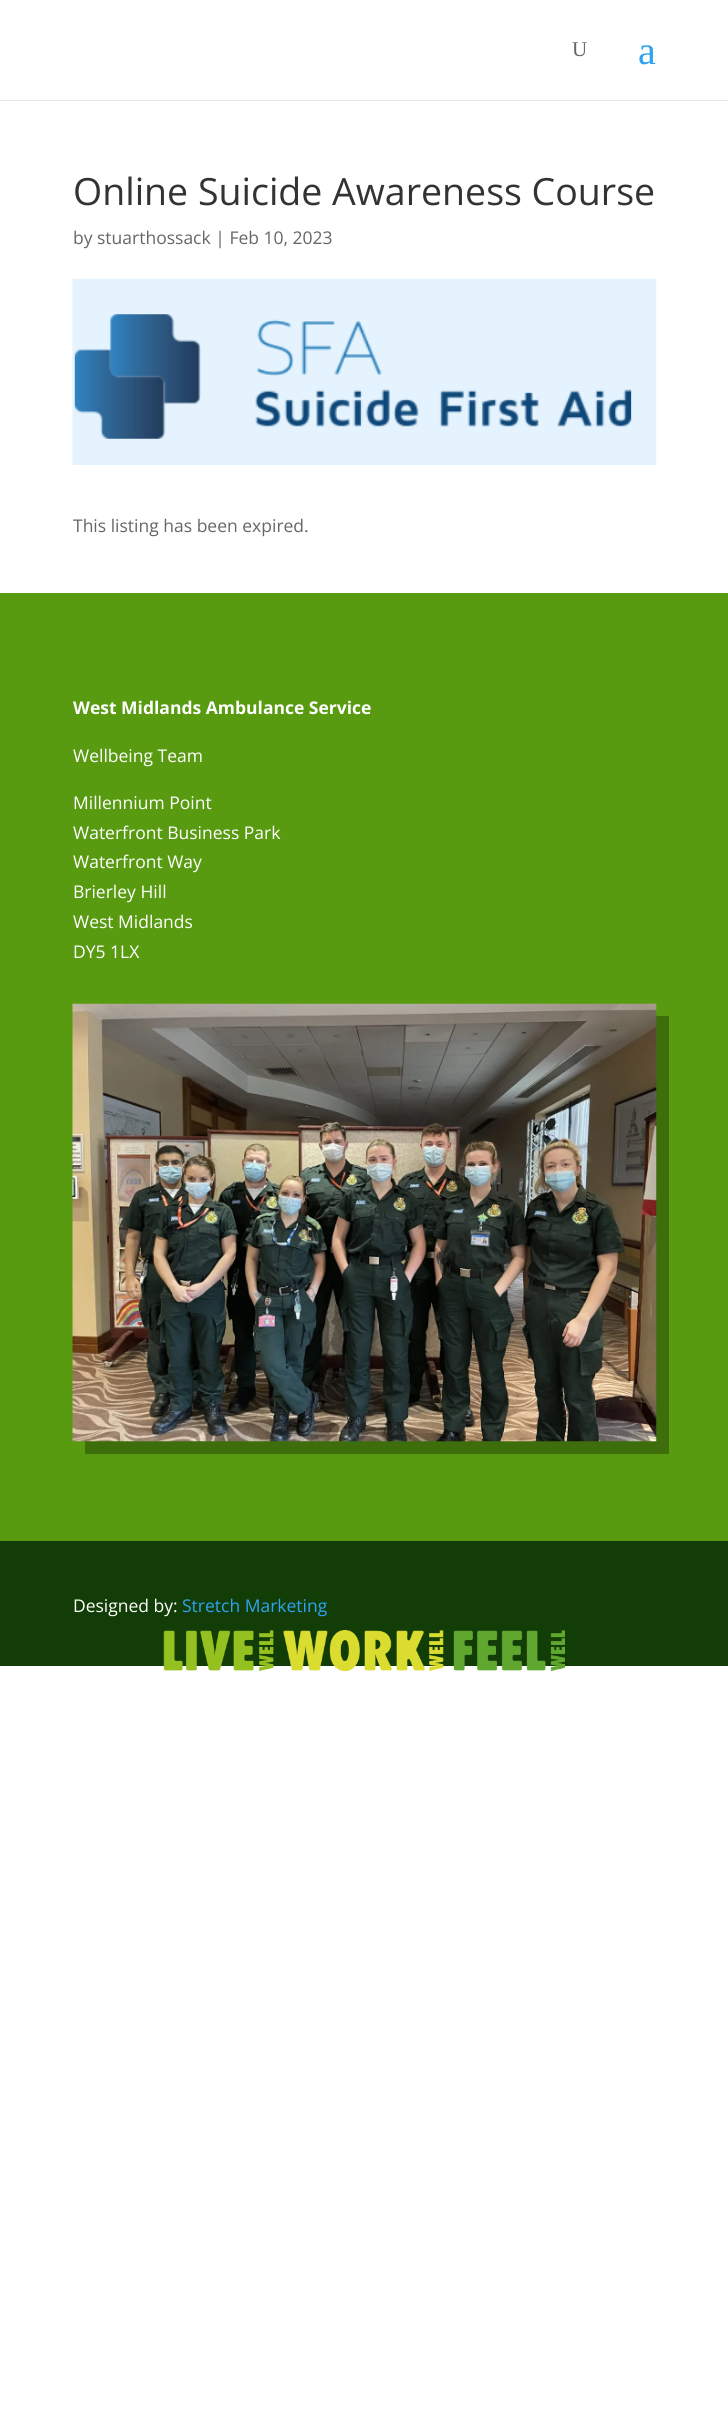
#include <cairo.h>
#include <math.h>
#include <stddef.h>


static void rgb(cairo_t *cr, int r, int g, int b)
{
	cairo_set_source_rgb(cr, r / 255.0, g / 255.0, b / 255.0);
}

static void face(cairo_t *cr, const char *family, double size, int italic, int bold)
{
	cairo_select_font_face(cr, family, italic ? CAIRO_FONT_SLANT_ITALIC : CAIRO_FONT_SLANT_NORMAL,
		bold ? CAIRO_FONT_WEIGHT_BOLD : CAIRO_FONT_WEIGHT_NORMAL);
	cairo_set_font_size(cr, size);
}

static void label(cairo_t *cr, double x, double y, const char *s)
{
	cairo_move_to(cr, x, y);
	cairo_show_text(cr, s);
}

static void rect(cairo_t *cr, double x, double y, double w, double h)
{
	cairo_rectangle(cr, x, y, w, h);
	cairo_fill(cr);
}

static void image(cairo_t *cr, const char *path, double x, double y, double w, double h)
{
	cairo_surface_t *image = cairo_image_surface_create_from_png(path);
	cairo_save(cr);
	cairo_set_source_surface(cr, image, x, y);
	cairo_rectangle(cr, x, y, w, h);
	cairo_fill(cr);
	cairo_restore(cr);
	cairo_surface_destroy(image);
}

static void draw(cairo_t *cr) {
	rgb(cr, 255, 255, 255);
	cairo_paint(cr);
	rgb(cr, 230, 230, 230);
	cairo_new_path(cr);
	cairo_move_to(cr, 0, 100);
	cairo_line_to(cr, 0, 101);
	cairo_line_to(cr, 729, 101);
	cairo_line_to(cr, 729, 1);
	cairo_line_to(cr, 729, 100);
	cairo_close_path(cr);
	cairo_fill(cr);
	face(cr, "Liberation Serif", 21, 0, 0);
	rgb(cr, 102, 102, 102);
	label(cr, 572, 56, "U");
	face(cr, "Liberation Serif", 40, 0, 0);
	rgb(cr, 46, 163, 242);
	label(cr, 638, 64, "a");
	face(cr, "Open Sans", 37.5, 0, 0);
	rgb(cr, 51, 51, 51);
	label(cr, 73, 205, "Online Suicide Awareness Course");
	face(cr, "Open Sans", 17.5, 0, 0);
	rgb(cr, 102, 102, 102);
	label(cr, 73, 244, "by stuarthossack | Feb 10, 2023");
	image(cr, "image0.png", 72, 278, 585, 187);
	label(cr, 73, 532, "This listing has been expired.");
	rgb(cr, 88, 155, 17);
	rect(cr, 0, 593, 728, 948);
	face(cr, "Open Sans", 17.5, 0, 1);
	rgb(cr, 255, 255, 255);
	label(cr, 73, 714, "West Midlands Ambulance Service");
	face(cr, "Open Sans", 17.5, 0, 0);
	label(cr, 73, 762, "Wellbeing Team");
	label(cr, 73, 809, "Millennium Point");
	label(cr, 73, 839, "Waterfront Business Park");
	label(cr, 73, 868, "Waterfront Way");
	label(cr, 73, 898, "Brierley Hill");
	label(cr, 73, 928, "West Midlands");
	label(cr, 73, 958, "DY5 1LX");
	rgb(cr, 62, 109, 12);
	cairo_new_path(cr);
	cairo_move_to(cr, 85, 1441);
	cairo_line_to(cr, 85, 1454);
	cairo_line_to(cr, 669, 1454);
	cairo_line_to(cr, 669, 1016);
	cairo_line_to(cr, 656, 1016);
	cairo_line_to(cr, 656, 1441);
	cairo_close_path(cr);
	cairo_fill(cr);
	image(cr, "image1.png", 72, 1003, 585, 439);
	rgb(cr, 19, 61, 6);
	rect(cr, 0, 1541, 728, 125);
	rgb(cr, 255, 255, 255);
	label(cr, 73, 1612, "Designed by:");
	rgb(cr, 46, 163, 242);
	label(cr, 182, 1612, "Stretch Marketing");
	image(cr, "image2.png", 163, 1630, 402, 42);
}

int main(void) {
	cairo_surface_t *surface = cairo_image_surface_create(CAIRO_FORMAT_RGB24, 728, 2411);
	cairo_t *cr = cairo_create(surface);
	cairo_font_options_t *options = cairo_font_options_create();
	cairo_font_options_set_hint_metrics(options, CAIRO_HINT_METRICS_OFF);
	cairo_font_options_set_hint_style(options, CAIRO_HINT_STYLE_NONE);
	cairo_set_font_options(cr, options);
	cairo_set_miter_limit(cr, 4);
	draw(cr);
	cairo_surface_write_to_png(surface, "render.png");
	cairo_font_options_destroy(options);
	cairo_destroy(cr);
	cairo_surface_destroy(surface);
	return 0;
}
